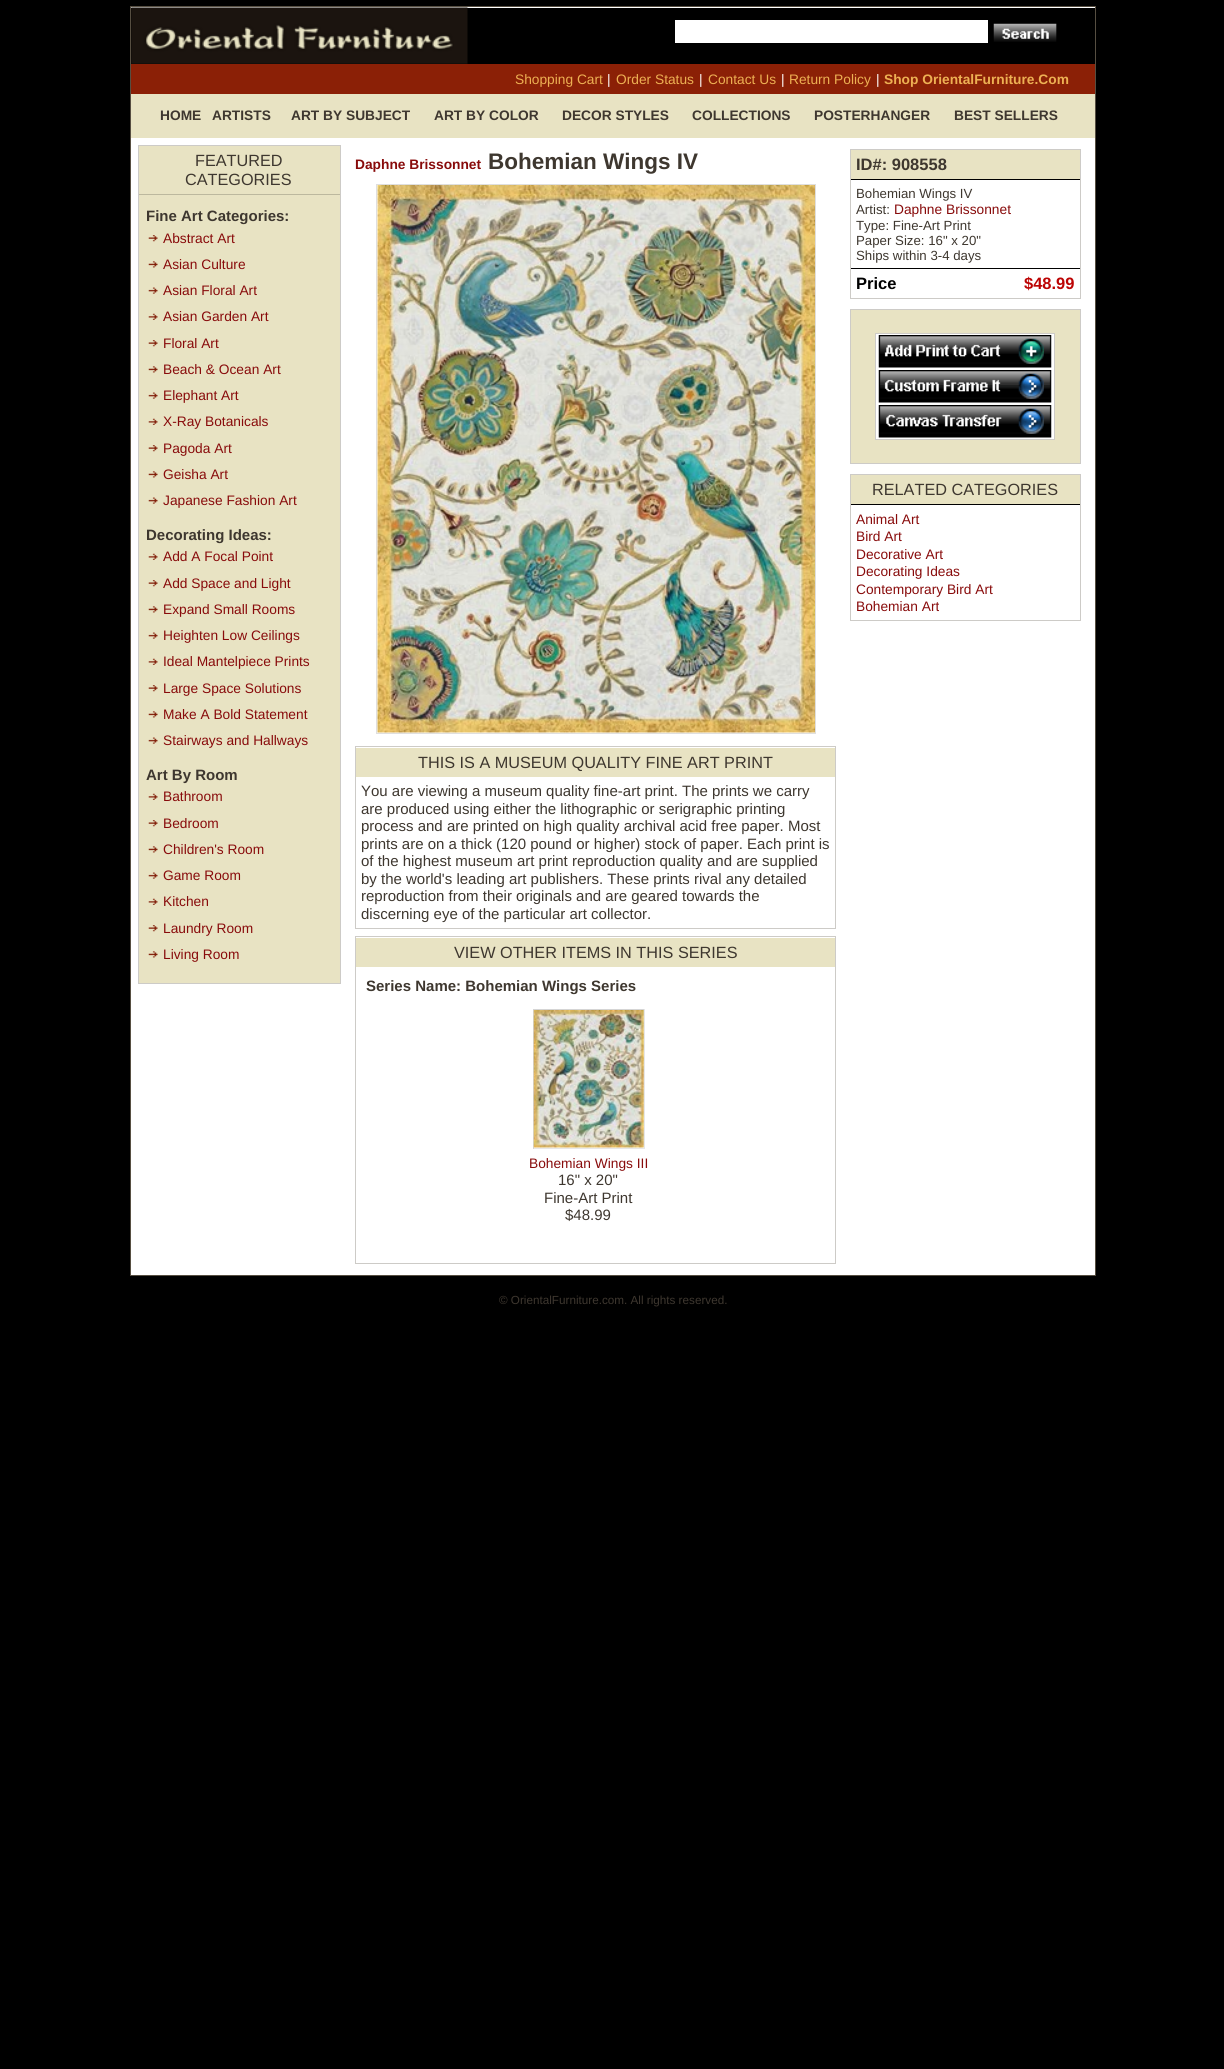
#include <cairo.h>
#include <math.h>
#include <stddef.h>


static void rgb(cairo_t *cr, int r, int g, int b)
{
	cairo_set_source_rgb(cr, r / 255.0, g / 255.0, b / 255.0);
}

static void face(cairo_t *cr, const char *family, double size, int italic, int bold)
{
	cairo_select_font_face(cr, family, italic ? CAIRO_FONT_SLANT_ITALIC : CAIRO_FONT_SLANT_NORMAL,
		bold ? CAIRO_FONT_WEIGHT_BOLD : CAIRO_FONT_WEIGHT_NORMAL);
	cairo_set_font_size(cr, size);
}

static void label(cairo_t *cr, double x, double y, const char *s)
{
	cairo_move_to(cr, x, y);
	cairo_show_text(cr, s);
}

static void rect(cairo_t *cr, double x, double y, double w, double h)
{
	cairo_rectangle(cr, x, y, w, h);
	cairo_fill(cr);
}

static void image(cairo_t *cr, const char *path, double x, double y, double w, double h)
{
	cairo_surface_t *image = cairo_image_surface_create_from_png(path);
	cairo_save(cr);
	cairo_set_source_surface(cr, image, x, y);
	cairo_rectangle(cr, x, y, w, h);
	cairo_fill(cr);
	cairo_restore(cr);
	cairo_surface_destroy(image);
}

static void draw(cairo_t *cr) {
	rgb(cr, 0, 0, 0);
	cairo_paint(cr);
	rgb(cr, 255, 255, 255);
	cairo_rectangle(cr, 130.5, 6.5, 965, 1269);
	cairo_fill_preserve(cr);
	rgb(cr, 86, 78, 65);
	cairo_set_line_width(cr, 1);
	cairo_stroke(cr);
	rgb(cr, 0, 0, 0);
	rect(cr, 131, 8, 964, 56);
	image(cr, "image0.png", 131, 7, 337, 57);
	rgb(cr, 255, 255, 255);
	rect(cr, 675, 20, 313, 23);
	image(cr, "image1.png", 993, 23, 64, 19);
	rgb(cr, 139, 32, 6);
	rect(cr, 131, 64, 964, 30);
	face(cr, "Liberation Sans", 13.75, 0, 0);
	rgb(cr, 237, 176, 83);
	label(cr, 515, 84, "Shopping Cart");
	rgb(cr, 255, 255, 255);
	label(cr, 607, 84, "|");
	rgb(cr, 237, 176, 83);
	label(cr, 616, 84, "Order Status");
	rgb(cr, 255, 255, 255);
	label(cr, 699, 84, "|");
	rgb(cr, 237, 176, 83);
	label(cr, 708, 84, "Contact Us");
	rgb(cr, 255, 255, 255);
	label(cr, 781, 84, "|");
	rgb(cr, 237, 176, 83);
	label(cr, 789, 84, "Return Policy");
	rgb(cr, 255, 255, 255);
	label(cr, 876, 84, "|");
	face(cr, "Liberation Sans", 13.75, 0, 1);
	rgb(cr, 237, 176, 83);
	label(cr, 884, 84, "Shop OrientalFurniture.Com");
	rgb(cr, 232, 227, 195);
	rect(cr, 131, 94, 964, 44);
	rgb(cr, 62, 55, 47);
	label(cr, 160, 120, "HOME");
	label(cr, 212, 120, "ARTISTS");
	label(cr, 291, 120, "ART BY SUBJECT");
	label(cr, 434, 120, "ART BY COLOR");
	label(cr, 562, 120, "DECOR STYLES");
	label(cr, 692, 120, "COLLECTIONS");
	label(cr, 814, 120, "POSTERHANGER");
	label(cr, 954, 120, "BEST SELLERS");
	cairo_rectangle(cr, 138.5, 145.5, 202, 838);
	rgb(cr, 205, 203, 199);
	cairo_stroke(cr);
	rgb(cr, 232, 227, 195);
	rect(cr, 139, 146, 201, 48);
	face(cr, "Liberation Sans", 16.25, 0, 0);
	rgb(cr, 62, 55, 47);
	label(cr, 195, 166, "FEATURED");
	label(cr, 185, 185, "CATEGORIES");
	rgb(cr, 232, 227, 195);
	rect(cr, 139, 195, 201, 788);
	rgb(cr, 188, 184, 158);
	rect(cr, 139, 194, 201, 1);
	face(cr, "Liberation Sans", 15, 0, 1);
	rgb(cr, 62, 55, 47);
	label(cr, 146, 221, "Fine Art Categories:");
	image(cr, "image2.png", 148, 235, 10, 7);
	face(cr, "Liberation Sans", 13.75, 0, 0);
	rgb(cr, 136, 11, 11);
	label(cr, 163, 243, "Abstract Art");
	image(cr, "image3.png", 148, 261, 10, 7);
	label(cr, 163, 269, "Asian Culture");
	image(cr, "image4.png", 148, 287, 10, 7);
	label(cr, 163, 295, "Asian Floral Art");
	image(cr, "image5.png", 148, 313, 10, 7);
	label(cr, 163, 321, "Asian Garden Art");
	image(cr, "image2.png", 148, 340, 10, 7);
	label(cr, 163, 348, "Floral Art");
	image(cr, "image3.png", 148, 366, 10, 7);
	label(cr, 163, 374, "Beach & Ocean Art");
	image(cr, "image4.png", 148, 392, 10, 7);
	label(cr, 163, 400, "Elephant Art");
	image(cr, "image5.png", 148, 418, 10, 7);
	label(cr, 163, 426, "X-Ray Botanicals");
	image(cr, "image2.png", 148, 445, 10, 7);
	label(cr, 163, 453, "Pagoda Art");
	image(cr, "image3.png", 148, 471, 10, 7);
	label(cr, 163, 479, "Geisha Art");
	image(cr, "image4.png", 148, 497, 10, 7);
	label(cr, 163, 505, "Japanese Fashion Art");
	face(cr, "Liberation Sans", 15, 0, 1);
	rgb(cr, 62, 55, 47);
	label(cr, 146, 540, "Decorating Ideas:");
	image(cr, "image5.png", 148, 553, 10, 7);
	face(cr, "Liberation Sans", 13.75, 0, 0);
	rgb(cr, 136, 11, 11);
	label(cr, 163, 561, "Add A Focal Point");
	image(cr, "image2.png", 148, 580, 10, 7);
	label(cr, 163, 588, "Add Space and Light");
	image(cr, "image3.png", 148, 606, 10, 7);
	label(cr, 163, 614, "Expand Small Rooms");
	image(cr, "image4.png", 148, 632, 10, 7);
	label(cr, 163, 640, "Heighten Low Ceilings");
	image(cr, "image5.png", 148, 658, 10, 7);
	label(cr, 163, 666, "Ideal Mantelpiece Prints");
	image(cr, "image2.png", 148, 685, 10, 7);
	label(cr, 163, 693, "Large Space Solutions");
	image(cr, "image3.png", 148, 711, 10, 7);
	label(cr, 163, 719, "Make A Bold Statement");
	image(cr, "image4.png", 148, 737, 10, 7);
	label(cr, 163, 745, "Stairways and Hallways");
	face(cr, "Liberation Sans", 15, 0, 1);
	rgb(cr, 62, 55, 47);
	label(cr, 146, 780, "Art By Room");
	image(cr, "image5.png", 148, 793, 10, 7);
	face(cr, "Liberation Sans", 13.75, 0, 0);
	rgb(cr, 136, 11, 11);
	label(cr, 163, 801, "Bathroom");
	image(cr, "image2.png", 148, 820, 10, 7);
	label(cr, 163, 828, "Bedroom");
	image(cr, "image3.png", 148, 846, 10, 7);
	label(cr, 163, 854, "Children's Room");
	image(cr, "image4.png", 148, 872, 10, 7);
	label(cr, 163, 880, "Game Room");
	image(cr, "image5.png", 148, 898, 10, 7);
	label(cr, 163, 906, "Kitchen");
	image(cr, "image2.png", 148, 925, 10, 7);
	label(cr, 163, 933, "Laundry Room");
	image(cr, "image3.png", 148, 951, 10, 7);
	label(cr, 163, 959, "Living Room");
	face(cr, "Liberation Sans", 13.75, 0, 1);
	label(cr, 355, 169, "Daphne Brissonnet");
	face(cr, "Liberation Sans", 22.5, 0, 1);
	rgb(cr, 62, 55, 47);
	label(cr, 488, 169, "Bohemian Wings IV");
	cairo_rectangle(cr, 376.5, 184.5, 439, 549);
	rgb(cr, 223, 223, 223);
	cairo_stroke(cr);
	image(cr, "image6.png", 377, 185, 438, 548);
	cairo_rectangle(cr, 355.5, 746.5, 480, 182);
	rgb(cr, 205, 203, 199);
	cairo_stroke(cr);
	rgb(cr, 232, 227, 195);
	rect(cr, 356, 748, 479, 29);
	face(cr, "Liberation Sans", 16.25, 0, 0);
	rgb(cr, 62, 55, 47);
	label(cr, 418, 768, "THIS IS A MUSEUM QUALITY FINE ART PRINT");
	face(cr, "Liberation Sans", 15, 0, 0);
	label(cr, 361, 796, "You are viewing a museum quality fine-art print. The prints we carry");
	label(cr, 361, 814, "are produced using either the lithographic or serigraphic printing");
	label(cr, 361, 831, "process and are printed on high quality archival acid free paper. Most");
	label(cr, 361, 849, "prints are on a thick (120 pound or higher) stock of paper. Each print is");
	label(cr, 361, 866, "of the highest museum art print reproduction quality and are supplied");
	label(cr, 361, 884, "by the world's leading art publishers. These prints rival any detailed");
	label(cr, 361, 901, "reproduction from their originals and are geared towards the");
	label(cr, 361, 919, "discerning eye of the particular art collector.");
	cairo_rectangle(cr, 355.5, 936.5, 480, 327);
	rgb(cr, 205, 203, 199);
	cairo_stroke(cr);
	rgb(cr, 232, 227, 195);
	rect(cr, 356, 938, 479, 29);
	face(cr, "Liberation Sans", 16.25, 0, 0);
	rgb(cr, 62, 55, 47);
	label(cr, 454, 958, "VIEW OTHER ITEMS IN THIS SERIES");
	face(cr, "Liberation Sans", 15, 0, 1);
	label(cr, 366, 991, "Series Name: Bohemian Wings Series");
	rgb(cr, 213, 213, 213);
	rect(cr, 533, 1009, 112, 1);
	rgb(cr, 231, 231, 231);
	rect(cr, 644, 1009, 1, 140);
	rect(cr, 533, 1148, 112, 1);
	rgb(cr, 213, 213, 213);
	rect(cr, 533, 1009, 1, 140);
	image(cr, "image7.png", 533, 1010, 111, 138);
	face(cr, "Liberation Sans", 13.75, 0, 0);
	rgb(cr, 136, 11, 11);
	label(cr, 529, 1168, "Bohemian Wings III");
	face(cr, "Liberation Sans", 15, 0, 0);
	rgb(cr, 62, 55, 47);
	label(cr, 558, 1185, "16\" x 20\"");
	label(cr, 544, 1203, "Fine-Art Print");
	label(cr, 565, 1220, "$48.99");
	cairo_rectangle(cr, 850.5, 149.5, 230, 149);
	rgb(cr, 205, 203, 199);
	cairo_stroke(cr);
	rgb(cr, 232, 227, 195);
	rect(cr, 851, 150, 229, 29);
	face(cr, "Liberation Sans", 16.5, 0, 1);
	rgb(cr, 62, 55, 47);
	label(cr, 856, 170, "ID#: 908558");
	rgb(cr, 0, 0, 0);
	rect(cr, 851, 179, 229, 1);
	face(cr, "Liberation Sans", 13.25, 0, 0);
	rgb(cr, 62, 55, 47);
	label(cr, 856, 198, "Bohemian Wings IV");
	label(cr, 856, 214, "Artist:");
	face(cr, "Liberation Sans", 13.75, 0, 0);
	rgb(cr, 136, 11, 11);
	label(cr, 894, 214, "Daphne Brissonnet");
	face(cr, "Liberation Sans", 13.25, 0, 0);
	rgb(cr, 62, 55, 47);
	label(cr, 856, 230, "Type: Fine-Art Print");
	label(cr, 856, 245, "Paper Size: 16\" x 20\"");
	label(cr, 856, 260, "Ships within 3-4 days");
	rgb(cr, 0, 0, 0);
	rect(cr, 851, 268, 229, 1);
	face(cr, "Liberation Sans", 16.5, 0, 1);
	label(cr, 856, 289, "Price");
	rgb(cr, 188, 4, 4);
	label(cr, 1024, 289, "$48.99");
	cairo_rectangle(cr, 850.5, 309.5, 230, 154);
	rgb(cr, 205, 203, 199);
	cairo_stroke(cr);
	rgb(cr, 232, 227, 195);
	rect(cr, 851, 310, 229, 153);
	rgb(cr, 255, 255, 255);
	cairo_rectangle(cr, 875.5, 333.5, 179, 106);
	cairo_fill_preserve(cr);
	rgb(cr, 205, 203, 199);
	cairo_stroke(cr);
	image(cr, "image8.png", 878, 335, 174, 33);
	image(cr, "image9.png", 878, 370, 174, 33);
	image(cr, "image10.png", 878, 405, 174, 33);
	cairo_rectangle(cr, 850.5, 474.5, 230, 146);
	cairo_stroke(cr);
	rgb(cr, 232, 227, 195);
	rect(cr, 851, 475, 229, 29);
	face(cr, "Liberation Sans", 16.25, 0, 0);
	rgb(cr, 62, 55, 47);
	label(cr, 872, 495, "RELATED CATEGORIES");
	rgb(cr, 0, 0, 0);
	rect(cr, 851, 504, 229, 1);
	face(cr, "Liberation Sans", 13.75, 0, 0);
	rgb(cr, 136, 11, 11);
	label(cr, 856, 524, "Animal Art");
	label(cr, 856, 541, "Bird Art");
	label(cr, 856, 559, "Decorative Art");
	label(cr, 856, 576, "Decorating Ideas");
	label(cr, 856, 594, "Contemporary Bird Art");
	label(cr, 856, 611, "Bohemian Art");
	face(cr, "Liberation Sans", 11.7, 0, 0);
	rgb(cr, 62, 55, 47);
	label(cr, 499, 1304, "© OrientalFurniture.com. All rights reserved.");
}

int main(void) {
	cairo_surface_t *surface = cairo_image_surface_create(CAIRO_FORMAT_RGB24, 1224, 2069);
	cairo_t *cr = cairo_create(surface);
	cairo_font_options_t *options = cairo_font_options_create();
	cairo_font_options_set_hint_metrics(options, CAIRO_HINT_METRICS_OFF);
	cairo_font_options_set_hint_style(options, CAIRO_HINT_STYLE_NONE);
	cairo_set_font_options(cr, options);
	cairo_set_miter_limit(cr, 4);
	draw(cr);
	cairo_surface_write_to_png(surface, "render.png");
	cairo_font_options_destroy(options);
	cairo_destroy(cr);
	cairo_surface_destroy(surface);
	return 0;
}
